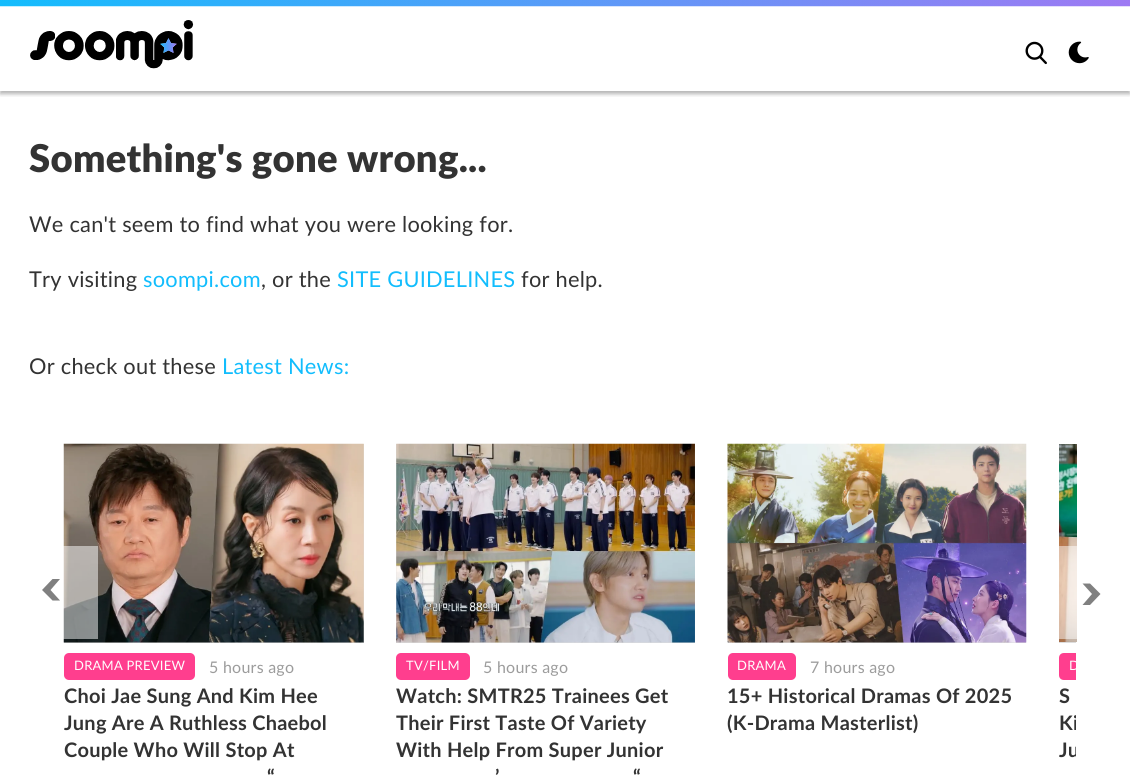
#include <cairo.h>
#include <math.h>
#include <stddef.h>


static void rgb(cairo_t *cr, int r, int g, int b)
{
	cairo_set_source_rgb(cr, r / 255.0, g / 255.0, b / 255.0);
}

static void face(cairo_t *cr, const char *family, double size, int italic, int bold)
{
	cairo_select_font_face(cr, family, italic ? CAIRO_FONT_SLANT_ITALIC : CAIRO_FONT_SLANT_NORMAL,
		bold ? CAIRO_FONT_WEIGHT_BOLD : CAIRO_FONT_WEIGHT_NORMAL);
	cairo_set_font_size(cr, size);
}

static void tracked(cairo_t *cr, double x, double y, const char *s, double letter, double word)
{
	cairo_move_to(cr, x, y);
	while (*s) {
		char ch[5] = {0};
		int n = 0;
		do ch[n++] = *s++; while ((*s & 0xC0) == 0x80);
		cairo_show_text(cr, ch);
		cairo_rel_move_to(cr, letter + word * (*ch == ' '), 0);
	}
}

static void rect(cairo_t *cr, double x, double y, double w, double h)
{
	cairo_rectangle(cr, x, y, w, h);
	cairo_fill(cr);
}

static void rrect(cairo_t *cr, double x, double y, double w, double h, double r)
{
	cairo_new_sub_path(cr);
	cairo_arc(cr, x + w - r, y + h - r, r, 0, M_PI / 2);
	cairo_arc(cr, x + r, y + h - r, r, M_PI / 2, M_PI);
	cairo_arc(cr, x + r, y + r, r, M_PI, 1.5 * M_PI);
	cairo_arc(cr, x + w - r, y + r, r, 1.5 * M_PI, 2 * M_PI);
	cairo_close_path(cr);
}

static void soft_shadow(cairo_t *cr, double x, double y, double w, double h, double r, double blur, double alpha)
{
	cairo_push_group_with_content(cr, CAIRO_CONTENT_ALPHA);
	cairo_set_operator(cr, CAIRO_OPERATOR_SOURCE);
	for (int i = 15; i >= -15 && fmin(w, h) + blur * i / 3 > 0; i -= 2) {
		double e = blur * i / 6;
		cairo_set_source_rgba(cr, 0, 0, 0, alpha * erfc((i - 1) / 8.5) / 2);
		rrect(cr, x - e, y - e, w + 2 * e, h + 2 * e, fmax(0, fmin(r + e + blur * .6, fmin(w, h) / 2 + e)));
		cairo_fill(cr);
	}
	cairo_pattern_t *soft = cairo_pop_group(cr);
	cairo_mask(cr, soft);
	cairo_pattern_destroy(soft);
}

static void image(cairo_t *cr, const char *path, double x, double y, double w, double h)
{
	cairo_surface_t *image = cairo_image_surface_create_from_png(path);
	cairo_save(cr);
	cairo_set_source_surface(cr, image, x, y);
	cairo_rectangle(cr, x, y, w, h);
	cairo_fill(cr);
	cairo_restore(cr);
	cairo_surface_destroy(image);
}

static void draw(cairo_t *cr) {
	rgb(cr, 255, 255, 255);
	cairo_paint(cr);
	cairo_save(cr);
	cairo_rectangle(cr, 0, 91, 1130, 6);
	cairo_clip(cr);
	rgb(cr, 0, 0, 0);
	soft_shadow(cr, 0, 3, 1130, 91, 0, 2, 0.3);
	cairo_restore(cr);
	image(cr, "image0.png", 0, 0, 1130, 7);
	image(cr, "image1.png", 30, 20, 164, 49);
	image(cr, "image2.png", 1025, 41, 22, 24);
	image(cr, "image3.png", 1068, 41, 21, 23);
	face(cr, "Lato Black", 38.25, 0, 0);
	rgb(cr, 51, 51, 51);
	tracked(cr, 29, 172, "Something's gone wrong...", 0.25, 0);
	face(cr, "Lato", 21.8, 0, 0);
	tracked(cr, 29, 232, "We can't seem to find what you were looking for.", 0.25, 0);
	tracked(cr, 29, 287, "Try visiting", 0.25, 0);
	rgb(cr, 18, 189, 253);
	tracked(cr, 143, 287, "soompi.com", 0.25, 0);
	rgb(cr, 51, 51, 51);
	tracked(cr, 261, 287, ", or the", 0.25, 0);
	rgb(cr, 18, 189, 253);
	tracked(cr, 337, 287, "SITE GUIDELINES", 0.25, 0);
	rgb(cr, 51, 51, 51);
	tracked(cr, 521, 287, "for help.", 0.25, 0);
	tracked(cr, 29, 374, "Or check out these", 0.25, 0);
	rgb(cr, 18, 189, 253);
	tracked(cr, 222, 374, "Latest News:", 0.25, 0);
	rgb(cr, 221, 221, 221);
	rect(cr, 64, 444, 300, 199);
	image(cr, "image4.png", 63, 443, 301, 200);
	cairo_set_source_rgba(cr, 1, 1, 1, 0.5);
	rect(cr, 63, 546, 35, 93);
	rgb(cr, 128, 128, 128);
	cairo_new_path(cr);
	cairo_move_to(cr, 42, 590);
	cairo_line_to(cr, 52.5, 579);
	cairo_line_to(cr, 60, 579);
	cairo_line_to(cr, 50.5, 590);
	cairo_line_to(cr, 60, 600.5);
	cairo_line_to(cr, 52.5, 600.5);
	cairo_close_path(cr);
	cairo_fill(cr);
	image(cr, "image7.png", 1059, 444, 18, 198);
	cairo_set_source_rgba(cr, 1, 1, 1, 0.5);
	rect(cr, 1059, 546, 18, 93);
	rgb(cr, 128, 128, 128);
	cairo_new_path(cr);
	cairo_move_to(cr, 1100.5, 594);
	cairo_line_to(cr, 1090, 605);
	cairo_line_to(cr, 1082.5, 605);
	cairo_line_to(cr, 1092, 594);
	cairo_line_to(cr, 1082.5, 583.5);
	cairo_line_to(cr, 1090, 583.5);
	cairo_close_path(cr);
	cairo_fill(cr);
	rgb(cr, 255, 62, 142);
	rrect(cr, 64, 653, 131, 27, 5);
	cairo_fill(cr);
	face(cr, "Lato", 13, 0, 0);
	rgb(cr, 255, 255, 255);
	tracked(cr, 74, 670, "DRAMA PREVIEW", 0.25, 0);
	face(cr, "Lato", 16, 0, 0);
	rgb(cr, 156, 156, 156);
	tracked(cr, 209, 673, "5 hours ago", 0.25, 0);
	face(cr, "Lato", 20, 0, 1);
	rgb(cr, 51, 51, 51);
	tracked(cr, 64, 703, "Choi Jae Sung And Kim Hee", 0.25, 0);
	tracked(cr, 64, 730, "Jung Are A Ruthless Chaebol", 0.25, 0);
	tracked(cr, 64, 757, "Couple Who Will Stop At", 0.25, 0);
	tracked(cr, 267, 784, "“", 0.25, 0);
	rgb(cr, 221, 221, 221);
	rect(cr, 396, 444, 299, 199);
	image(cr, "image5.png", 396, 443, 299, 200);
	rgb(cr, 255, 62, 142);
	rrect(cr, 396, 653, 74, 27, 5);
	cairo_fill(cr);
	face(cr, "Lato", 13, 0, 0);
	rgb(cr, 255, 255, 255);
	tracked(cr, 406, 670, "TV/FILM", 0.25, 0);
	face(cr, "Lato", 16, 0, 0);
	rgb(cr, 156, 156, 156);
	tracked(cr, 483, 673, "5 hours ago", 0.25, 0);
	face(cr, "Lato", 20, 0, 1);
	rgb(cr, 51, 51, 51);
	tracked(cr, 396, 703, "Watch: SMTR25 Trainees Get", 0.25, 0);
	tracked(cr, 396, 730, "Their First Taste Of Variety", 0.25, 0);
	tracked(cr, 396, 757, "With Help From Super Junior", 0.25, 0);
	tracked(cr, 495, 784, "’", 0.25, 0);
	tracked(cr, 633, 784, "“", 0.25, 0);
	rgb(cr, 221, 221, 221);
	rect(cr, 728, 444, 298, 199);
	image(cr, "image6.png", 727, 443, 300, 200);
	rgb(cr, 255, 62, 142);
	rrect(cr, 728, 653, 68, 27, 5);
	cairo_fill(cr);
	face(cr, "Lato", 13, 0, 0);
	rgb(cr, 255, 255, 255);
	tracked(cr, 737, 670, "DRAMA", 0.25, 0);
	face(cr, "Lato", 16, 0, 0);
	rgb(cr, 156, 156, 156);
	tracked(cr, 810, 673, "7 hours ago", 0.25, 0);
	face(cr, "Lato", 20, 0, 1);
	rgb(cr, 51, 51, 51);
	tracked(cr, 727, 703, "15+ Historical Dramas Of 2025", 0.25, 0);
	tracked(cr, 727, 730, "(K-Drama Masterlist)", 0.25, 0);
	rgb(cr, 221, 221, 221);
	rect(cr, 1059, 642, 17, 1);
	rgb(cr, 255, 62, 142);
	cairo_new_path(cr);
	cairo_move_to(cr, 1064, 653);
	cairo_line_to(cr, 1076, 653);
	cairo_line_to(cr, 1076, 680);
	cairo_line_to(cr, 1064, 680);
	cairo_curve_to(cr, 1061, 680, 1059, 678, 1059, 675);
	cairo_line_to(cr, 1059, 658);
	cairo_curve_to(cr, 1059, 655, 1061, 653, 1064, 653);
	cairo_close_path(cr);
	cairo_fill(cr);
	cairo_save(cr);
	cairo_rectangle(cr, 54, 444, 1022, 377);
	cairo_clip(cr);
	face(cr, "Lato", 13, 0, 0);
	rgb(cr, 255, 255, 255);
	tracked(cr, 1069, 670, "D", 0.25, 0);
	cairo_restore(cr);
	rgb(cr, 51, 51, 51);
	tracked(cr, 1059, 703, "S", 0.25, 0);
	cairo_save(cr);
	cairo_rectangle(cr, 54, 444, 1022, 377);
	cairo_clip(cr);
	tracked(cr, 1059, 730, "Ki", 0.25, 0);
	tracked(cr, 1059, 757, "Ju", 0.25, 0);
	cairo_restore(cr);
}

int main(void) {
	cairo_surface_t *surface = cairo_image_surface_create(CAIRO_FORMAT_RGB24, 1130, 776);
	cairo_t *cr = cairo_create(surface);
	cairo_font_options_t *options = cairo_font_options_create();
	cairo_font_options_set_hint_metrics(options, CAIRO_HINT_METRICS_OFF);
	cairo_font_options_set_hint_style(options, CAIRO_HINT_STYLE_NONE);
	cairo_set_font_options(cr, options);
	cairo_set_miter_limit(cr, 4);
	draw(cr);
	cairo_surface_write_to_png(surface, "render.png");
	cairo_font_options_destroy(options);
	cairo_destroy(cr);
	cairo_surface_destroy(surface);
	return 0;
}
